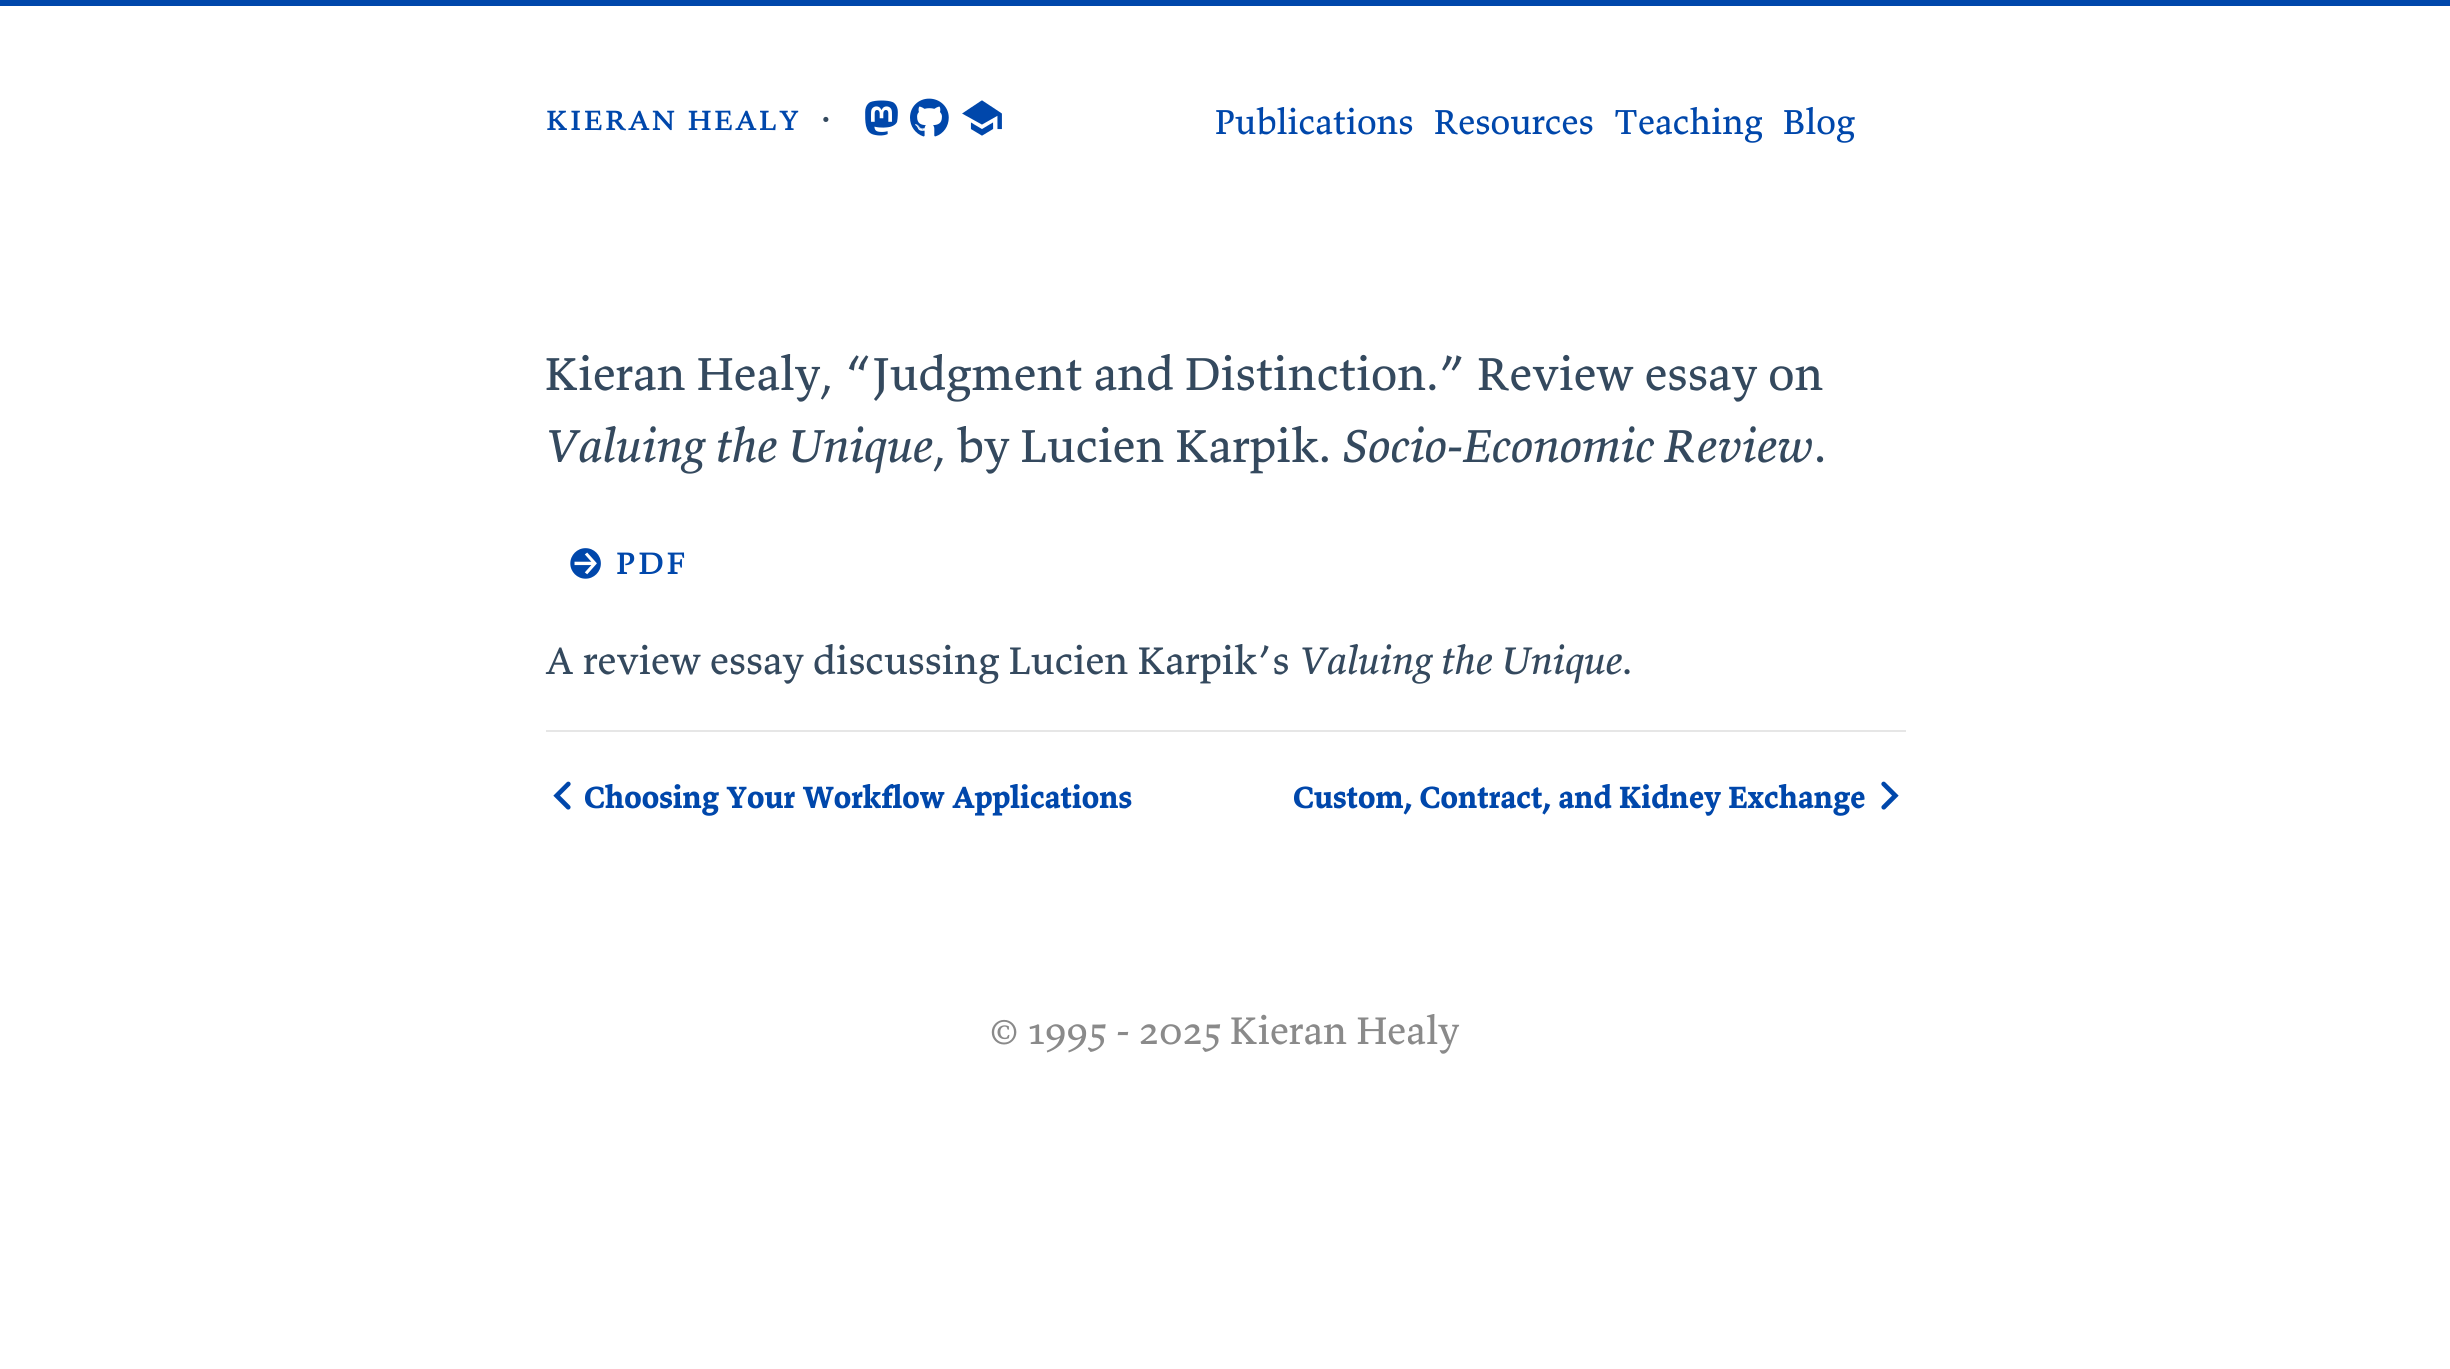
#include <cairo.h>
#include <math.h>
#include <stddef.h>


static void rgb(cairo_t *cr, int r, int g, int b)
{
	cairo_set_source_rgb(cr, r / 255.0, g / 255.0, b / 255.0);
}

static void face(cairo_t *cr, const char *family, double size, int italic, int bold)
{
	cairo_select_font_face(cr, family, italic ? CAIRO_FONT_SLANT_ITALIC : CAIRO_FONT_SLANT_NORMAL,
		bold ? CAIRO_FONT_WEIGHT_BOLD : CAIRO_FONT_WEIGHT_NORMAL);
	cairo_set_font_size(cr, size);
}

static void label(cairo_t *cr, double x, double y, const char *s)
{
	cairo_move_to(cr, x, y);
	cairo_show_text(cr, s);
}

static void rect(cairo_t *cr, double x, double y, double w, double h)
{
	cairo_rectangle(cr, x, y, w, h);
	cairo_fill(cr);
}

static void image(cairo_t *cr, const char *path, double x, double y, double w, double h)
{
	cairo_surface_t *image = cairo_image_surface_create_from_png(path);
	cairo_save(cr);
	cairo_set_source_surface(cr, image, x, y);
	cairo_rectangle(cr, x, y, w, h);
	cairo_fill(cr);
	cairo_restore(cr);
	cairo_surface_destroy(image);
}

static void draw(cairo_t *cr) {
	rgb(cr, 255, 255, 255);
	cairo_paint(cr);
	rgb(cr, 0, 71, 171);
	rect(cr, 0, 0, 2450, 6);
	face(cr, "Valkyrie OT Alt", 36, 0, 0);
	label(cr, 545, 130, "kieran healy");
	face(cr, "Valkyrie OT Alt", 40, 0, 0);
	rgb(cr, 52, 73, 94);
	label(cr, 819, 130, "·");
	image(cr, "image0.png", 865, 100, 33, 36);
	image(cr, "image1.png", 910, 98, 39, 39);
	image(cr, "image2.png", 962, 100, 40, 36);
	face(cr, "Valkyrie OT", 36, 0, 0);
	rgb(cr, 0, 71, 171);
	label(cr, 1215, 134, "Publications");
	label(cr, 1434, 134, "Resources");
	cairo_save(cr);
	cairo_rectangle(cr, 1614, 90, 148, 60);
	cairo_clip(cr);
	label(cr, 1614, 134, "Teaching");
	cairo_restore(cr);
	label(cr, 1783, 134, "Blog");
	face(cr, "Valkyrie OT", 48, 0, 0);
	rgb(cr, 52, 73, 94);
	label(cr, 545, 390, "Kieran Healy, “Judgment and Distinction.” Review essay on");
	face(cr, "Valkyrie OT", 48, 1, 0);
	label(cr, 545, 462, "Valuing the Unique");
	face(cr, "Valkyrie OT", 48, 0, 0);
	label(cr, 933, 462, ", by Lucien Karpik.");
	face(cr, "Valkyrie OT", 48, 1, 0);
	label(cr, 1342, 462, "Socio-Economic Review");
	face(cr, "Valkyrie OT", 48, 0, 0);
	label(cr, 1814, 462, ".");
	face(cr, "Valkyrie OT Alt", 40, 0, 0);
	rgb(cr, 0, 71, 171);
	label(cr, 568, 574, "→ pdf");
	face(cr, "Valkyrie OT", 40, 0, 0);
	rgb(cr, 52, 73, 94);
	label(cr, 545, 674, "A review essay discussing Lucien Karpik’s");
	face(cr, "Valkyrie OT", 40, 1, 0);
	label(cr, 1299, 674, "Valuing the Unique");
	face(cr, "Valkyrie OT", 40, 0, 0);
	label(cr, 1622, 674, ".");
	rgb(cr, 230, 230, 230);
	rect(cr, 546, 730, 1360, 2);
	image(cr, "image3.png", 553, 781, 18, 29);
	face(cr, "Valkyrie OT", 32, 0, 1);
	rgb(cr, 0, 71, 171);
	label(cr, 584, 808, "Choosing Your Workflow Applications");
	label(cr, 1293, 808, "Custom, Contract, and Kidney Exchange");
	image(cr, "image4.png", 1881, 781, 18, 29);
	face(cr, "Valkyrie OT", 40, 0, 0);
	rgb(cr, 138, 138, 138);
	label(cr, 990, 1044, "©");
	face(cr, "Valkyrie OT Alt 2", 40, 0, 0);
	label(cr, 1028, 1044, "1995 - 2025");
	face(cr, "Valkyrie OT", 40, 0, 0);
	label(cr, 1230, 1044, "Kieran Healy");
}

int main(void) {
	cairo_surface_t *surface = cairo_image_surface_create(CAIRO_FORMAT_RGB24, 2450, 1369);
	cairo_t *cr = cairo_create(surface);
	cairo_font_options_t *options = cairo_font_options_create();
	cairo_font_options_set_hint_metrics(options, CAIRO_HINT_METRICS_OFF);
	cairo_font_options_set_hint_style(options, CAIRO_HINT_STYLE_NONE);
	cairo_set_font_options(cr, options);
	cairo_set_miter_limit(cr, 4);
	draw(cr);
	cairo_surface_write_to_png(surface, "render.png");
	cairo_font_options_destroy(options);
	cairo_destroy(cr);
	cairo_surface_destroy(surface);
	return 0;
}
